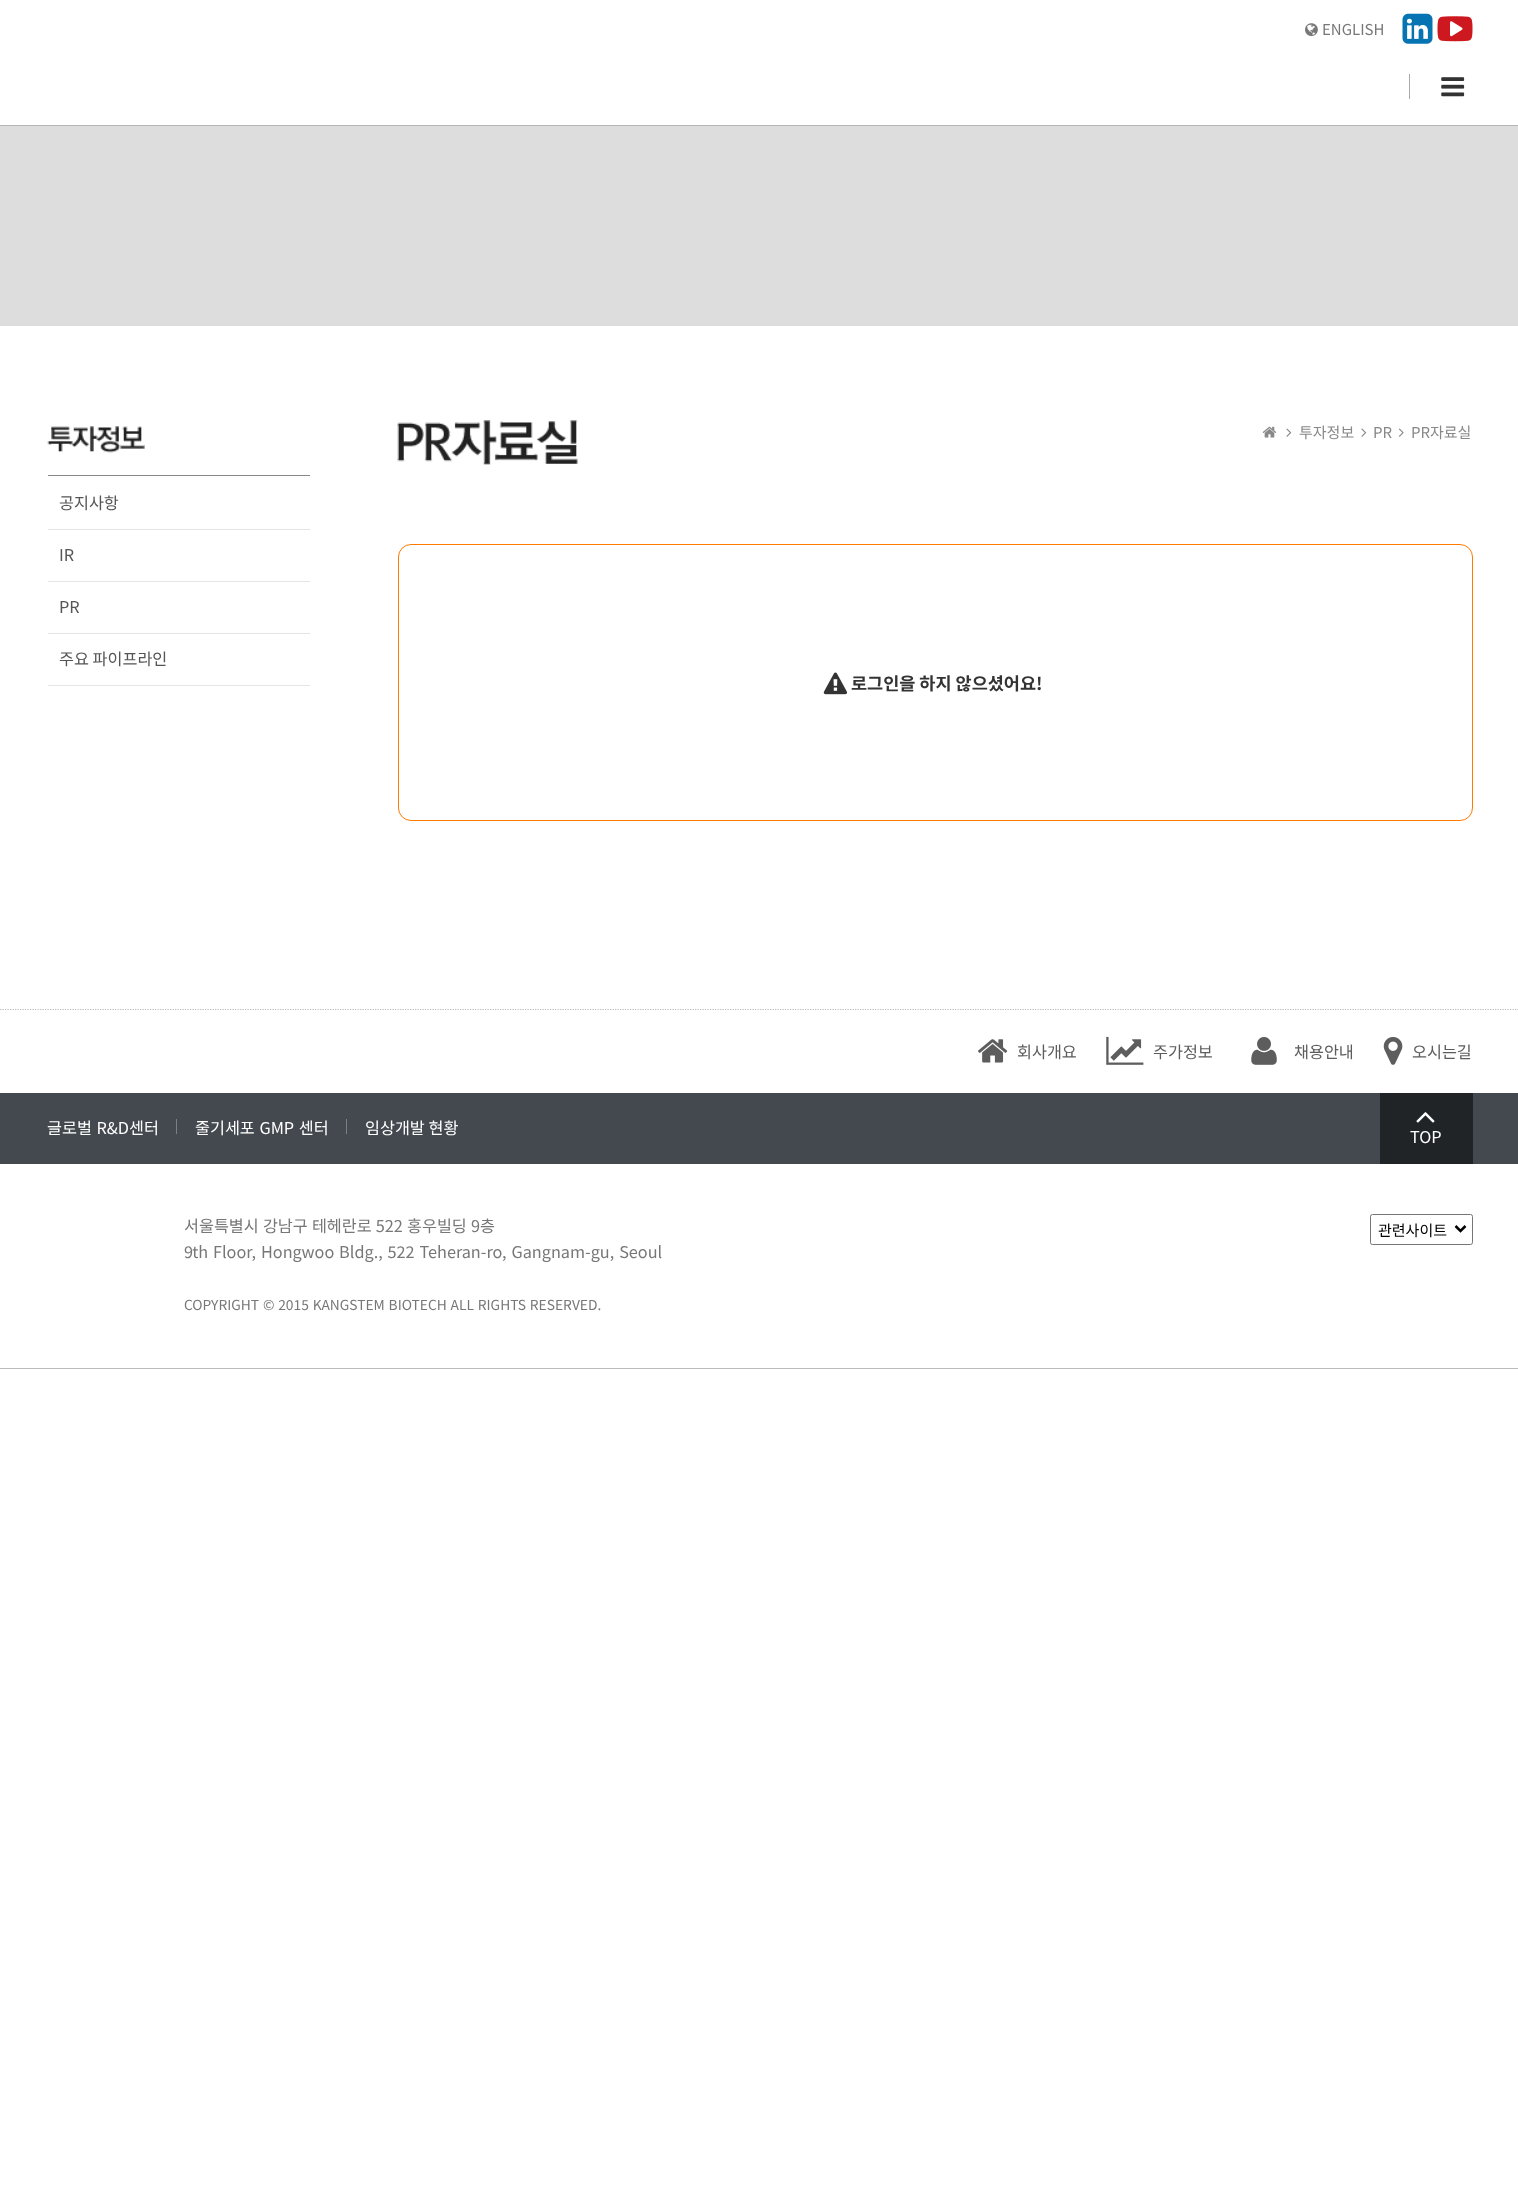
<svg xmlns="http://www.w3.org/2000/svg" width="1518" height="2185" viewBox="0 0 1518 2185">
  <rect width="100%" height="100%" fill="#fff"/>
  <path d="M0 125h1518v1H0z" fill="#b5b5b5"/>
  <image x="1305" y="23" width="13" height="14" href="img/1.png"/>
  <image x="1402" y="13" width="31" height="31" href="img/2.png"/>
  <image x="1437" y="16" width="36" height="26" href="img/3.png"/>
  <path d="M1409 74h1v25H1409z" fill="#aaa"/>
  <image x="1441" y="77" width="24" height="20" href="img/4.png"/>
  <path d="M0 126h1518v200H0z" fill="#ddd"/>
  <path d="M48 475h262v1H48z" fill="#888"/>
  <image x="47" y="426" width="98" height="27" href="img/5.png"/>
  <path d="M48 529h262v1H48z" fill="#e5e5e5"/>
  <path d="M48 581h262v1H48z" fill="#e5e5e5"/>
  <path d="M48 633h262v1H48z" fill="#e5e5e5"/>
  <path d="M48 685h262v1H48z" fill="#e5e5e5"/>
  <image x="397" y="420" width="181" height="45" href="img/6.png"/>
  <image x="1262" y="426" width="15" height="12" href="img/7.png"/>
  <image x="1286" y="428" width="6" height="9" href="img/8.png"/>
  <image x="1361" y="428" width="6" height="9" href="img/8.png"/>
  <image x="1398" y="428" width="6" height="9" href="img/9.png"/>
  <rect x="398.5" y="544.5" width="1074" height="276" rx="12.5" fill="none" stroke="#ff7900"/>
  <image x="823" y="672" width="25" height="23" href="img/10.png"/>
  <path d="M0 1009.5H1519" fill="none" stroke="#bbb" stroke-width="1.2" stroke-dasharray="1.25 1.25"/>
  <image x="978" y="1039" width="30" height="24" href="img/11.png"/>
  <image x="1106" y="1036" width="38" height="29" href="img/12.png"/>
  <image x="1251" y="1037" width="26" height="28" href="img/13.png"/>
  <image x="1383" y="1037" width="20" height="28" href="img/14.png"/>
  <path d="M0 1093h1518v71H0z" fill="#44494f"/>
  <path d="M176 1119h1v15H176z" fill="#7c8084"/>
  <path d="M346 1119h1v15H346z" fill="#7c8084"/>
  <path d="M1380 1093h93v71H1380z" fill="#202427"/>
  <image x="1416" y="1112" width="19" height="11" href="img/15.png"/>
  <path d="M0 1368h1518v1H0z" fill="#bbb"/>
  <rect x="1370.5" y="1214.5" width="102" height="30" rx="2" fill="none" stroke="#767676"/>
  <path d="M1455.5 1226L1460.5 1231L1465.5 1226" fill="none" stroke="#000" stroke-width="2.5"/>
  <text x="1322" y="35" font-family="Noto Sans KR" font-size="15" fill="#777">ENGLISH</text>
  <g font-family="Noto Sans KR" font-size="16.25" fill="#555">
    <text x="59" y="509">공지사항</text>
    <text x="59" y="561">IR</text>
    <text x="59" y="613">PR</text>
    <text x="59" y="665">주요 파이프라인</text>
  </g>
  <g font-family="Noto Sans KR" font-size="15" fill="#888">
    <text x="1299" y="438">투자정보</text>
    <text x="1373" y="438">PR</text>
    <text x="1411" y="438">PR자료실</text>
  </g>
  <text x="851" y="690" font-family="Noto Sans KR" font-size="17.5" font-weight="bold" fill="#333">로그인을 하지 않으셨어요!</text>
  <g font-family="Noto Sans KR" font-size="16.25" fill="#5d5d5d">
    <text x="1017" y="1058">회사개요</text>
    <text x="1153" y="1058">주가정보</text>
    <text x="1294" y="1058">채용안내</text>
    <text x="1412" y="1058">오시는길</text>
  </g>
  <g font-family="Noto Sans KR" font-size="16.25" fill="#fff">
    <text x="47" y="1134" word-spacing="1">글로벌 R&amp;D센터</text>
    <text x="195" y="1134" word-spacing="1">줄기세포 GMP 센터</text>
    <text x="365" y="1134">임상개발 현황</text>
    <text x="1410" y="1143">TOP</text>
  </g>
  <g font-family="Noto Sans KR" font-size="16.25" fill="#777">
    <text x="184" y="1232" word-spacing="0.5">서울특별시 강남구 테헤란로 522 홍우빌딩 9층</text>
    <text x="184" y="1258" word-spacing="1.25">9th Floor, Hongwoo Bldg., 522 Teheran-ro, Gangnam-gu, Seoul</text>
  </g>
  <text x="184" y="1310" word-spacing="0.75" font-family="Noto Sans KR" font-size="13.8" fill="#777">COPYRIGHT © 2015 KANGSTEM BIOTECH ALL RIGHTS RESERVED.</text>
  <text x="1378" y="1236" font-family="Noto Sans KR" font-size="15" fill="#000">관련사이트</text>
</svg>
